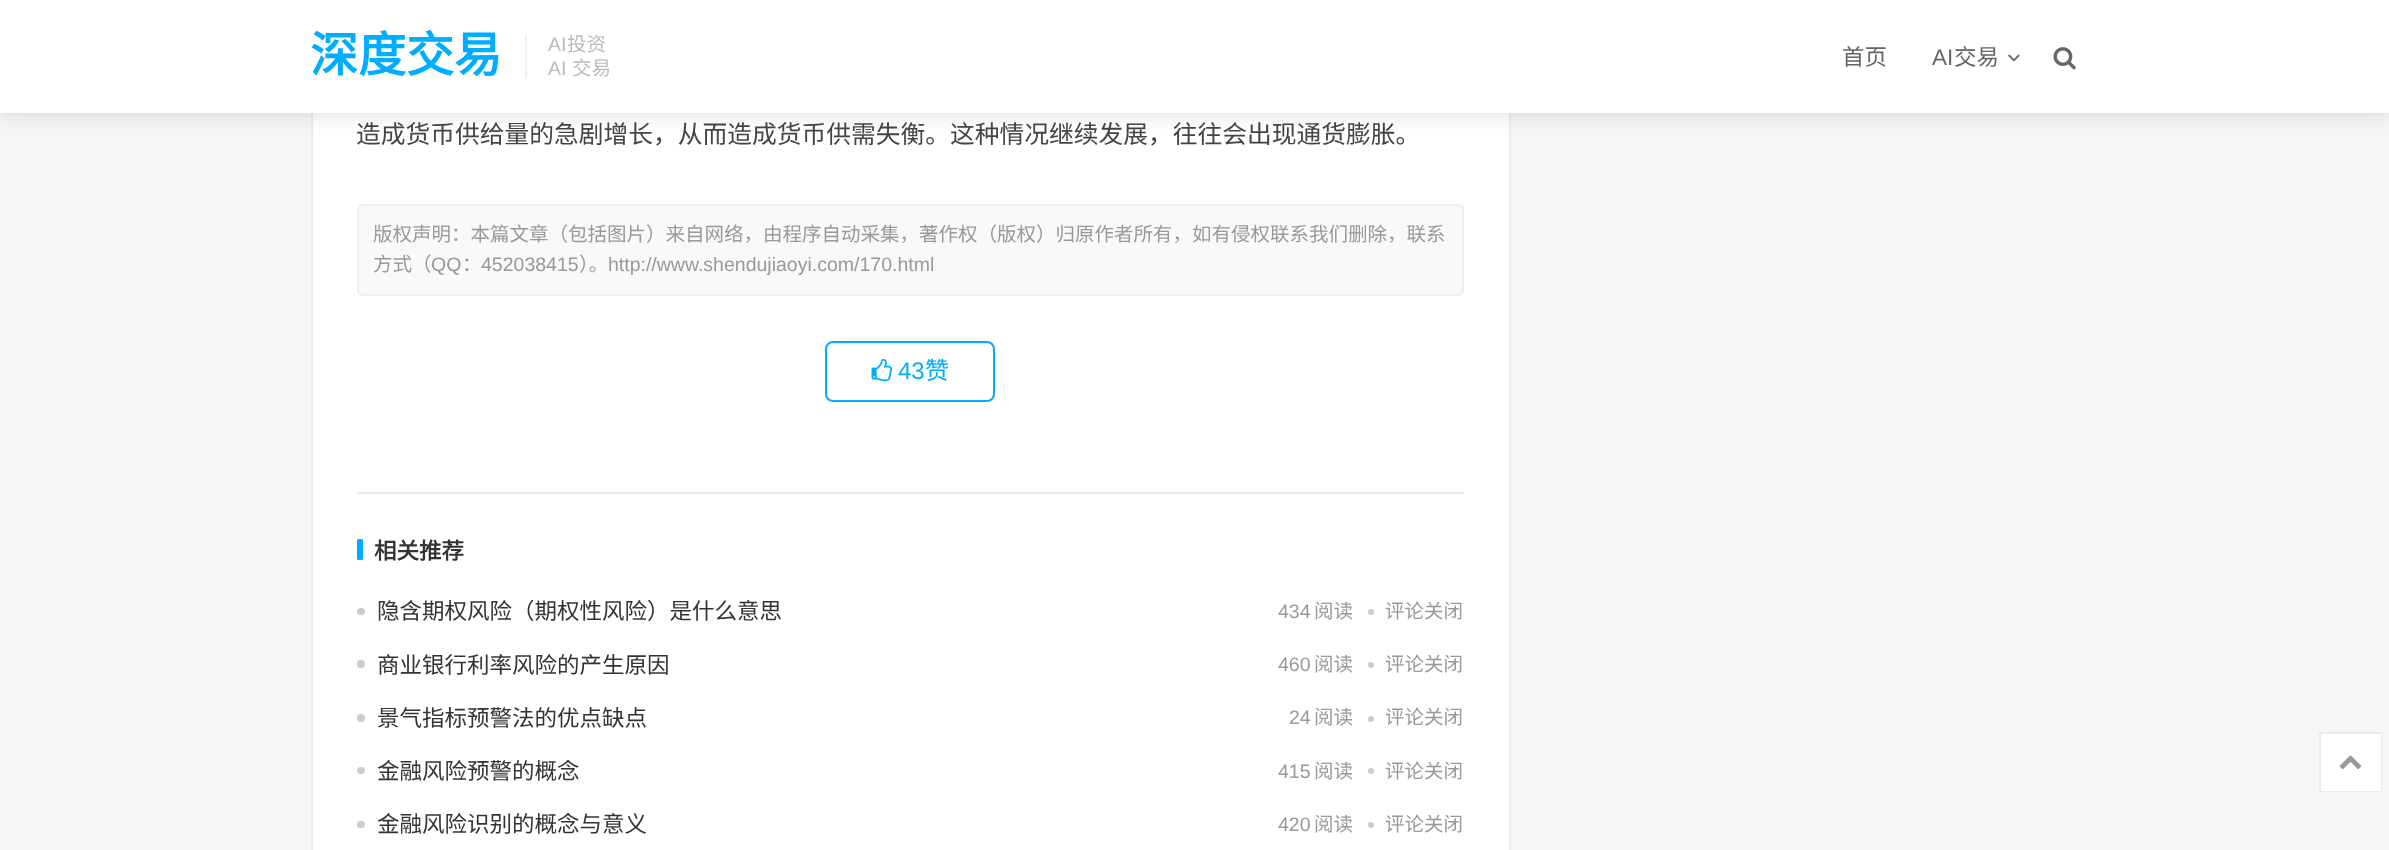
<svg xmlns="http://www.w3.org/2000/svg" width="2389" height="850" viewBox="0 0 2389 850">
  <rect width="100%" height="100%" fill="#f6f6f6"/>
  <path d="M313 113h1196v737H313z" fill="#fff"/>
  <path d="M312 -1h1198v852H312z" fill="none" stroke="#eaeaea" stroke-width="2"/>
  <path d="M0 5h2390v112H0z" fill="#0000001a" filter="blur(9px)"/>
  <path d="M0 0h2389v113H0z" fill="#fff"/>
  <path d="M525 35h2v43H525z" fill="#f0f0f0"/>
  <image x="2008" y="54" width="12" height="8" href="img/1.png"/>
  <image x="2053" y="47" width="23" height="23" href="img/2.png"/>
  <rect x="358" y="205" width="1105" height="90" rx="4" fill="#f9f9f9" stroke="#efefef" stroke-width="2"/>
  <rect x="826" y="342" width="168" height="59" rx="7" fill="none" stroke="#00aeff" stroke-width="2"/>
  <image x="871" y="358" width="22" height="24" href="img/3.png"/>
  <path d="M357 492h1107v2H357z" fill="#eaeaea"/>
  <rect x="357" y="539" width="6" height="21" rx="1.5" fill="#00aeff"/>
  <rect x="357" y="608" width="8" height="7" rx="3.5" fill="#ccc"/>
  <circle cx="1371" cy="612" r="3" fill="#ccc"/>
  <circle cx="361" cy="664" r="4" fill="#ccc"/>
  <circle cx="1371" cy="665" r="3" fill="#ccc"/>
  <circle cx="361" cy="718" r="4" fill="#ccc"/>
  <circle cx="1371" cy="719" r="3" fill="#ccc"/>
  <rect x="357" y="767" width="8" height="7" rx="3.5" fill="#ccc"/>
  <circle cx="1371" cy="771" r="3" fill="#ccc"/>
  <rect x="357" y="821" width="8" height="7" rx="3.5" fill="#ccc"/>
  <circle cx="1371" cy="825" r="3" fill="#ccc"/>
  <path d="M2320 733h61v58H2320z" fill="none" stroke="#eaeaea" stroke-width="2"/>
  <path d="M2321 734h60v57H2321z" fill="#fff"/>
  <image x="2339" y="755" width="23" height="15" href="img/4.png"/>
  <text x="310" y="72" font-family="Noto Sans CJK SC" font-size="48" font-weight="bold" fill="#00aeff">深度交易</text>
  <text x="548" y="51" font-family="Liberation Sans" font-size="19.5" fill="#bbb">AI</text>
  <text x="567" y="51" font-family="Noto Sans CJK SC" font-size="19.5" fill="#bbb">投资</text>
  <text x="548" y="75" font-family="Liberation Sans" font-size="19.5" fill="#bbb">AI</text>
  <text x="572" y="75" font-family="Noto Sans CJK SC" font-size="19.5" fill="#bbb">交易</text>
  <text x="1842" y="65" font-family="Noto Sans CJK SC" font-size="22.5" fill="#666">首页</text>
  <text x="1932" y="65" font-family="Liberation Sans" font-size="22.5" fill="#666">AI</text>
  <text x="1954" y="65" font-family="Noto Sans CJK SC" font-size="22.5" fill="#666">交易</text>
  <text x="356" y="143" font-family="Noto Sans CJK SC" font-size="24.75" fill="#444">造成货币供给量的急剧增长，从而造成货币供需失衡。这种情况继续发展，往往会出现通货膨胀。</text>
  <g font-family="Noto Sans CJK SC" font-size="19.5" fill="#999">
    <text x="373" y="241">版权声明：本篇文章（包括图片）来自网络，由程序自动采集，著作权（版权）归原作者所有，如有侵权联系我们删除，联系</text>
    <text x="373" y="271">方式（</text>
  </g>
  <text x="431" y="271" font-family="Liberation Sans" font-size="19.5" fill="#999">QQ</text>
  <text x="462" y="271" font-family="Noto Sans CJK SC" font-size="19.5" fill="#999">：</text>
  <text x="481" y="271" font-family="Liberation Sans" font-size="19.5" fill="#999">452038415</text>
  <text x="579" y="271" font-family="Noto Sans CJK SC" font-size="19.5" fill="#999">）。</text>
  <text x="608" y="271" font-family="Liberation Sans" font-size="19.5" fill="#999">http://www.shendujiaoyi.com/170.html</text>
  <text x="898" y="379" font-family="Liberation Sans" font-size="24" fill="#00aeff">43</text>
  <text x="925" y="379" font-family="Noto Sans CJK SC" font-size="24" fill="#00aeff">赞</text>
  <text x="374" y="559" font-family="Noto Sans CJK SC" font-size="22.5" font-weight="bold" fill="#333">相关推荐</text>
  <text x="377" y="619" font-family="Noto Sans CJK SC" font-size="22.5" fill="#333">隐含期权风险（期权性风险）是什么意思</text>
  <text x="1278" y="618" font-family="Liberation Sans" font-size="19.5" fill="#999">434</text>
  <g font-family="Noto Sans CJK SC" font-size="19.5" fill="#999">
    <text x="1314" y="618">阅读</text>
    <text x="1385" y="618">评论关闭</text>
  </g>
  <text x="377" y="673" font-family="Noto Sans CJK SC" font-size="22.5" fill="#333">商业银行利率风险的产生原因</text>
  <text x="1278" y="671" font-family="Liberation Sans" font-size="19.5" fill="#999">460</text>
  <g font-family="Noto Sans CJK SC" font-size="19.5" fill="#999">
    <text x="1314" y="671">阅读</text>
    <text x="1385" y="671">评论关闭</text>
  </g>
  <text x="377" y="726" font-family="Noto Sans CJK SC" font-size="22.5" fill="#333">景气指标预警法的优点缺点</text>
  <text x="1289" y="724" font-family="Liberation Sans" font-size="19.5" fill="#999">24</text>
  <g font-family="Noto Sans CJK SC" font-size="19.5" fill="#999">
    <text x="1314" y="724">阅读</text>
    <text x="1385" y="724">评论关闭</text>
  </g>
  <text x="377" y="779" font-family="Noto Sans CJK SC" font-size="22.5" fill="#333">金融风险预警的概念</text>
  <text x="1278" y="778" font-family="Liberation Sans" font-size="19.5" fill="#999">415</text>
  <g font-family="Noto Sans CJK SC" font-size="19.5" fill="#999">
    <text x="1314" y="778">阅读</text>
    <text x="1385" y="778">评论关闭</text>
  </g>
  <text x="377" y="832" font-family="Noto Sans CJK SC" font-size="22.5" fill="#333">金融风险识别的概念与意义</text>
  <text x="1278" y="831" font-family="Liberation Sans" font-size="19.5" fill="#999">420</text>
  <g font-family="Noto Sans CJK SC" font-size="19.5" fill="#999">
    <text x="1314" y="831">阅读</text>
    <text x="1385" y="831">评论关闭</text>
  </g>
</svg>
